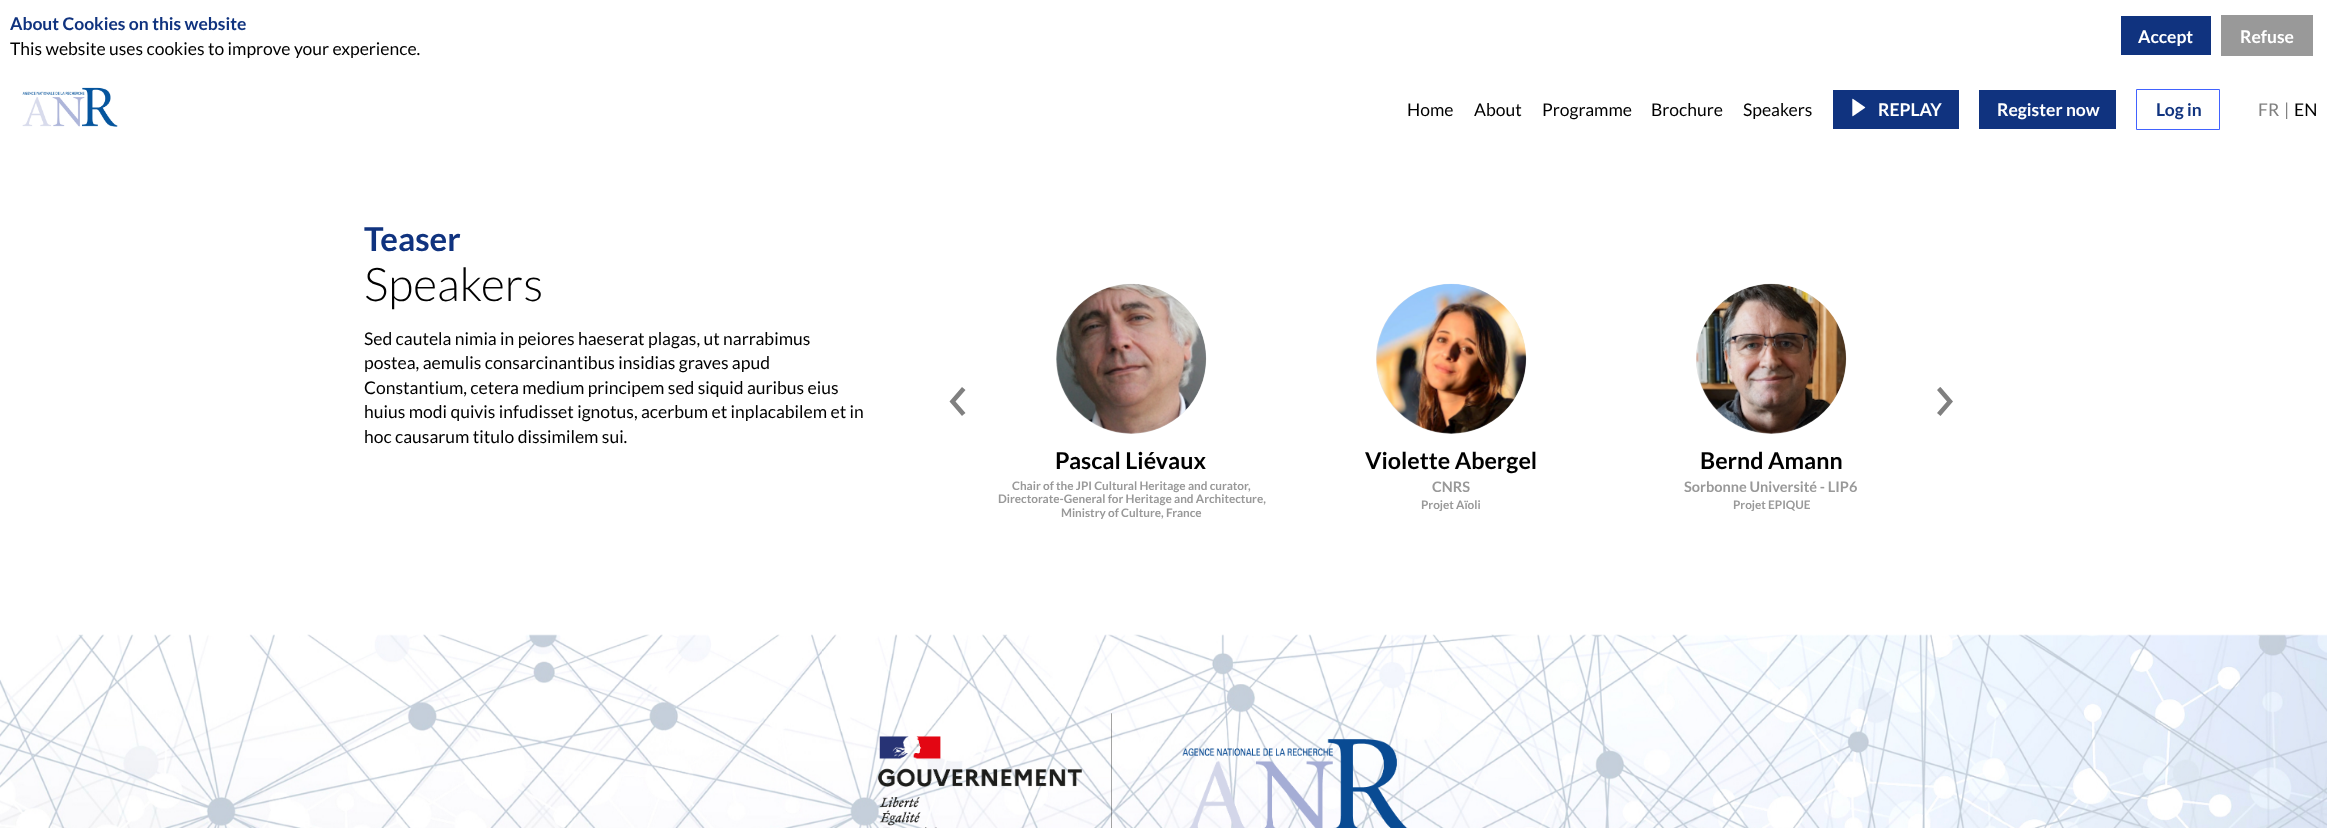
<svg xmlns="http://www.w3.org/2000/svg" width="2327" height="828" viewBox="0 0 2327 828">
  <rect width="100%" height="100%" fill="#fff"/>
  <path d="M2121 16h90v39H2121z" fill="#10337f"/>
  <path d="M2221 15h92v41H2221z" fill="#999"/>
  <image x="22" y="87" width="96" height="40" href="img/1.png"/>
  <path d="M1833 90h126v39H1833z" fill="#10337f"/>
  <image x="1852" y="98" width="14" height="19" href="img/2.png"/>
  <path d="M1979 90h137v39H1979z" fill="#10337f"/>
  <path d="M2136.5 89.5h83v40H2136.5z" fill="none" stroke="#4162ff"/>
  <path d="M963 415L965.5 413L955.5 401.5L965.5 390L962 387L949.5 401.5L962 416Z" fill="#808080"/>
  <path d="M1939.5 387.5L1937 390L1947 401.5L1937 413L1940.5 416L1953 401.5L1940.5 387Z" fill="#808080"/>
  <circle cx="1131" cy="359" r="75" fill="#e9e9e9"/>
  <image x="1056" y="283" width="151" height="151" href="img/3.png"/>
  <circle cx="1451" cy="359" r="75" fill="#e9e9e9"/>
  <image x="1376" y="283" width="151" height="151" href="img/4.png"/>
  <circle cx="1771" cy="359" r="75" fill="#e9e9e9"/>
  <image x="1696" y="283" width="151" height="151" href="img/5.png"/>
  <image x="0" y="634" width="2327" height="194" href="img/6.png"/>
  <image x="878" y="713" width="530" height="115" href="img/7.png"/>
  <text x="10" y="30" font-family="Lato" font-size="17.5" font-weight="bold" fill="#10337f">About Cookies on this website</text>
  <text x="10" y="55" font-family="Lato" font-size="17.5" fill="#000">This website uses cookies to improve your experience.</text>
  <g font-family="Lato" font-size="17.5" font-weight="bold" fill="#fff">
    <text x="2138" y="43">Accept</text>
    <text x="2240" y="43">Refuse</text>
  </g>
  <g font-family="Lato" font-size="17.5" fill="#000">
    <text x="1407" y="116">Home</text>
    <text x="1474" y="116">About</text>
    <text x="1542" y="116">Programme</text>
    <text x="1651" y="116">Brochure</text>
    <text x="1743" y="116">Speakers</text>
  </g>
  <g font-family="Lato" font-size="17.5" font-weight="bold" fill="#fff">
    <text x="1878" y="116">REPLAY</text>
    <text x="1997" y="116">Register now</text>
  </g>
  <text x="2156" y="116" font-family="Lato" font-size="17.5" font-weight="bold" fill="#10337f">Log in</text>
  <g font-family="Lato" font-size="17.5" fill="#808080">
    <text x="2258" y="116">FR</text>
    <text x="2284" y="116">|</text>
  </g>
  <text x="2294" y="116" font-family="Lato" font-size="17.5" fill="#000">EN</text>
  <text x="364" y="251" font-family="Lato" font-size="33" font-weight="bold" fill="#10337f">Teaser</text>
  <text x="364" y="301" font-family="Lato" font-size="46.5" font-weight="300" fill="#000">Speakers</text>
  <g font-family="Lato" font-size="17.5" fill="#000">
    <text x="364" y="345">Sed cautela nimia in peiores haeserat plagas, ut narrabimus</text>
    <text x="364" y="369">postea, aemulis consarcinantibus insidias graves apud</text>
    <text x="364" y="394">Constantium, cetera medium principem sed siquid auribus eius</text>
    <text x="364" y="418">huius modi quivis infudisset ignotus, acerbum et inplacabilem et in</text>
    <text x="364" y="443">hoc causarum titulo dissimilem sui.</text>
  </g>
  <text x="1055" y="469" font-family="Lato" font-size="23.25" font-weight="bold" fill="#000">Pascal Liévaux</text>
  <g font-family="Lato" font-size="11.75" font-weight="bold" fill="#999">
    <text x="1012" y="490">Chair of the JPI Cultural Heritage and curator,</text>
    <text x="998" y="503">Directorate-General for Heritage and Architecture,</text>
    <text x="1061" y="517">Ministry of Culture, France</text>
  </g>
  <text x="1365" y="469" font-family="Lato" font-size="23.25" font-weight="bold" fill="#000">Violette Abergel</text>
  <text x="1432" y="492" font-family="Lato" font-size="14.5" font-weight="bold" fill="#999">CNRS</text>
  <text x="1421" y="509" font-family="Lato" font-size="11.75" font-weight="bold" fill="#999">Projet Aïoli</text>
  <text x="1700" y="469" font-family="Lato" font-size="23.25" font-weight="bold" fill="#000">Bernd Amann</text>
  <text x="1684" y="492" font-family="Lato" font-size="14.5" font-weight="bold" fill="#999">Sorbonne Université - LIP6</text>
  <text x="1733" y="509" font-family="Lato" font-size="11.75" font-weight="bold" fill="#999">Projet EPIQUE</text>
</svg>
